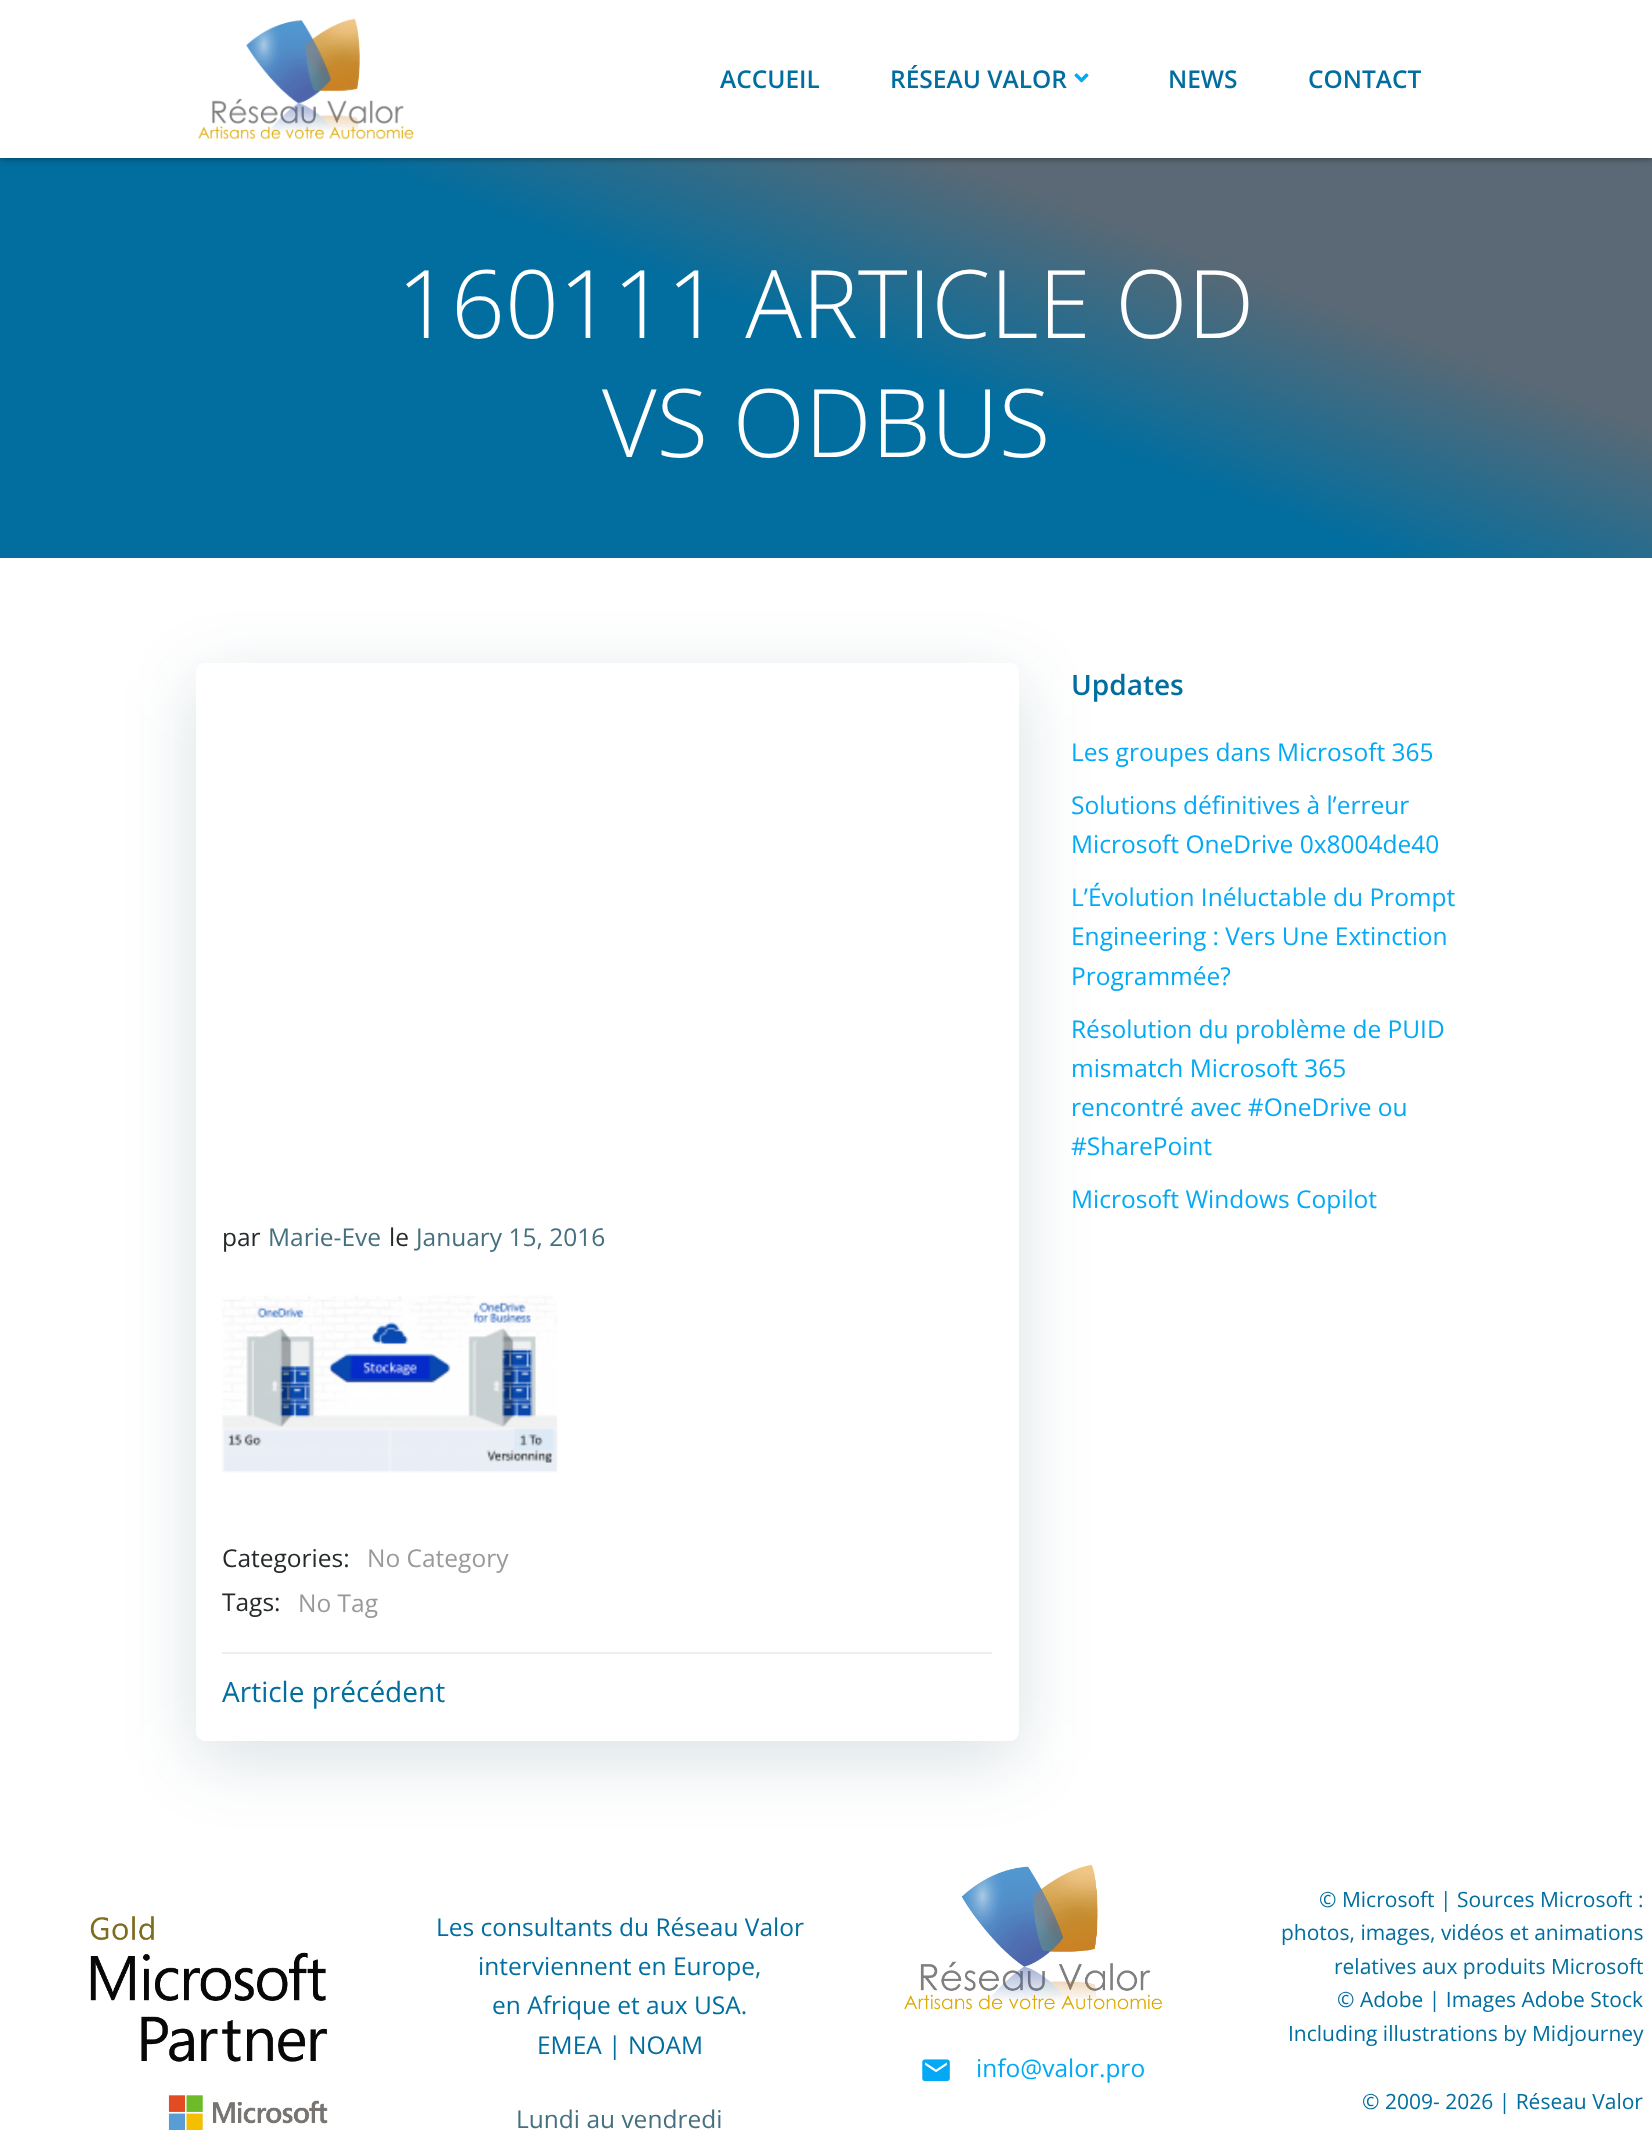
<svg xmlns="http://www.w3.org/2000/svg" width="1652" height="2130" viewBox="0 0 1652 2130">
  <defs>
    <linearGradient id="g1" gradientUnits="userSpaceOnUse" x1="613" y1="794" x2="1039" y2="-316"><stop offset="0.42" stop-color="#026e9f"/><stop offset="0.6" stop-color="#5a6975"/></linearGradient>
  </defs>
  <rect width="100%" height="100%" fill="#fff"/>
  <path d="M0 158h1652v400H0z" fill="url(#g1)"/>
  <path d="M0 0h1652v158H0z" fill="#00000080" filter="blur(3.5px)"/>
  <path d="M0 0h1652v158H0z" fill="#fff"/>
  <image x="198" y="18" width="216" height="122" href="img/1.png"/>
  <image x="1074" y="73" width="15" height="10" href="img/2.png"/>
  <rect x="196" y="681" width="823" height="1078" rx="9" fill="#01334a26" filter="blur(35px)"/>
  <rect x="196" y="663" width="823" height="1078" rx="9" fill="#fff"/>
  <image x="222" y="1295" width="336" height="178" href="img/3.png"/>
  <path d="M222 1652h770v2H222z" fill="#eee"/>
  <image x="90" y="1916" width="238" height="214" href="img/4.png"/>
  <image x="904" y="1865" width="258" height="145" href="img/5.png"/>
  <image x="922" y="2059" width="28" height="23" href="img/6.png"/>
  <g font-family="Open Sans" font-size="24.5" font-weight="600" fill="#026e9f">
    <text x="720" y="88">ACCUEIL</text>
    <text x="890" y="88">RÉSEAU VALOR</text>
    <text x="1168" y="88">NEWS</text>
    <text x="1308" y="88">CONTACT</text>
  </g>
  <g font-family="Open Sans" font-size="94.5" font-weight="300" fill="#fff">
    <text x="397" y="338">160111 ARTICLE OD</text>
    <text x="602" y="457">VS ODBUS</text>
  </g>
  <text x="1071" y="695" font-family="Open Sans" font-size="28" font-weight="600" fill="#026e9f">Updates</text>
  <g font-family="Open Sans" font-size="24.5" fill="#03a9f4">
    <text x="1071" y="761">Les groupes dans Microsoft 365</text>
    <text x="1071" y="814">Solutions définitives à l’erreur</text>
    <text x="1071" y="853">Microsoft OneDrive 0x8004de40</text>
    <text x="1071" y="906">L’Évolution Inéluctable du Prompt</text>
    <text x="1071" y="945">Engineering : Vers Une Extinction</text>
    <text x="1071" y="985">Programmée?</text>
    <text x="1071" y="1038">Résolution du problème de PUID</text>
    <text x="1071" y="1077">mismatch Microsoft 365</text>
    <text x="1071" y="1116">rencontré avec #OneDrive ou</text>
    <text x="1071" y="1155">#SharePoint</text>
    <text x="1071" y="1208">Microsoft Windows Copilot</text>
  </g>
  <text x="222" y="1246" font-family="Open Sans" font-size="24.5" fill="#25292a">par</text>
  <text x="268" y="1246" font-family="Open Sans" font-size="24.5" fill="#46707f">Marie-Eve</text>
  <text x="389" y="1246" font-family="Open Sans" font-size="24.5" fill="#25292a">le</text>
  <text x="416" y="1246" font-family="Open Sans" font-size="24.5" fill="#46707f">January 15, 2016</text>
  <text x="222" y="1567" font-family="Open Sans" font-size="24.5" fill="#25292a">Categories:</text>
  <text x="367" y="1567" font-family="Open Sans" font-size="24.5" fill="#999">No Category</text>
  <text x="222" y="1611" font-family="Open Sans" font-size="24.5" fill="#25292a">Tags:</text>
  <text x="298" y="1612" font-family="Open Sans" font-size="24.5" fill="#999">No Tag</text>
  <text x="222" y="1702" font-family="Open Sans" font-size="28" fill="#026e9f">Article précédent</text>
  <g font-family="Open Sans" font-size="24.5" fill="#026e9f">
    <text x="436" y="1936">Les consultants du Réseau Valor</text>
    <text x="478" y="1975">interviennent en Europe,</text>
    <text x="492" y="2014">en Afrique et aux USA.</text>
    <text x="537" y="2054">EMEA | NOAM</text>
  </g>
  <text x="516" y="2128" font-family="Open Sans" font-size="24.5" fill="#46707f">Lundi au vendredi</text>
  <text x="976" y="2077" font-family="Open Sans" font-size="24.5" fill="#03a9f4">info@valor.pro</text>
  <g font-family="Open Sans" font-size="21" fill="#026e9f">
    <text x="1319" y="1907">© Microsoft | Sources Microsoft :</text>
    <text x="1281" y="1940">photos, images, vidéos et animations</text>
    <text x="1334" y="1974">relatives aux produits Microsoft</text>
    <text x="1337" y="2007">© Adobe | Images Adobe Stock</text>
    <text x="1288" y="2041">Including illustrations by Midjourney</text>
    <text x="1362" y="2109">© 2009- 2026 | Réseau Valor</text>
  </g>
</svg>
